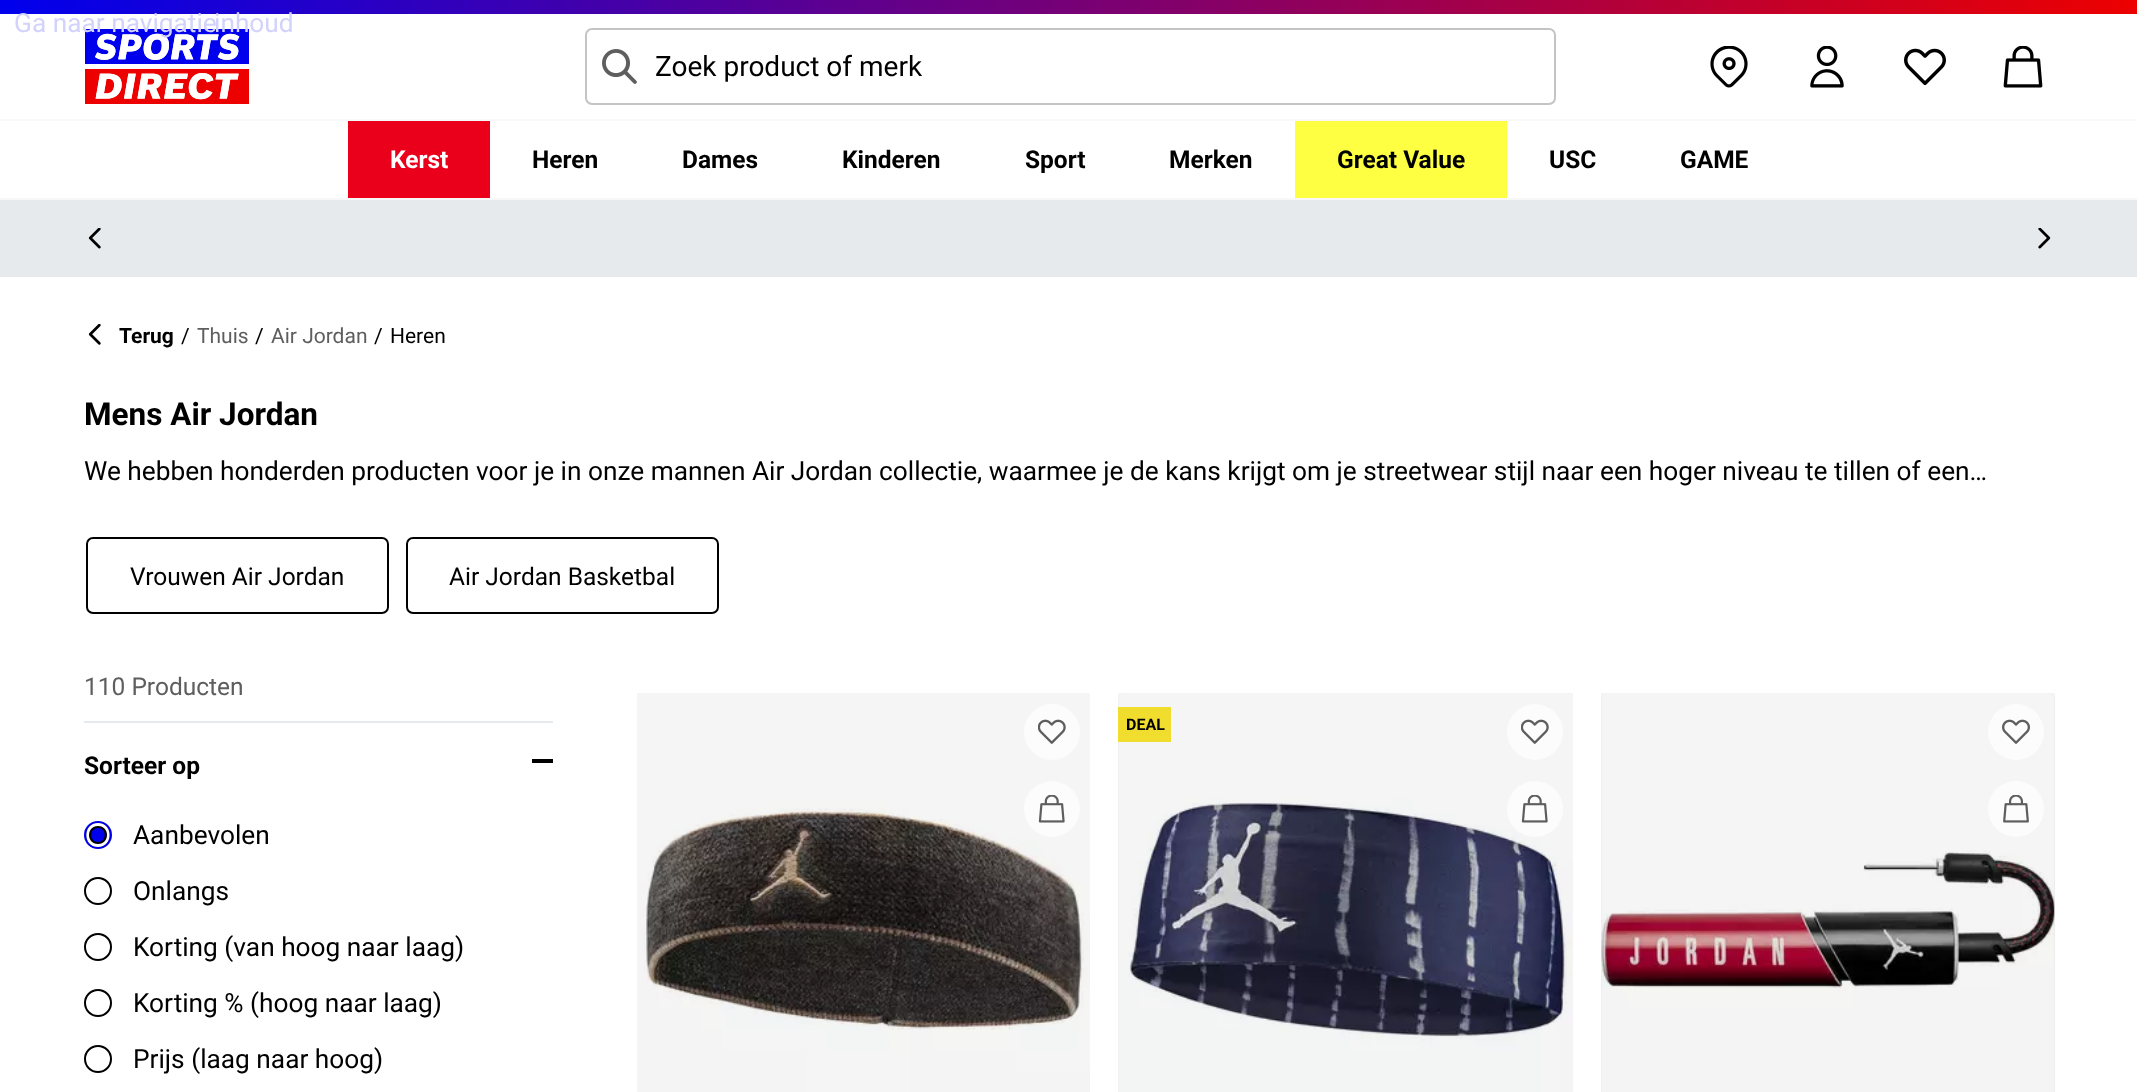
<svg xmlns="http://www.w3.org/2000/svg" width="2137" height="1092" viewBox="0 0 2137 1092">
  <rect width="100%" height="100%" fill="#fff"/>
  <image x="0" y="0" width="2137" height="14" href="img/1.png"/>
  <image x="85" y="29" width="164" height="75" href="img/2.png"/>
  <rect x="586" y="29" width="969" height="75" rx="6" fill="none" stroke="#c4c4c4" stroke-width="2"/>
  <image x="602" y="49" width="35" height="35" href="img/3.png"/>
  <image x="1710" y="46" width="38" height="42" href="img/4.png"/>
  <image x="1810" y="46" width="34" height="42" href="img/5.png"/>
  <image x="1904" y="48" width="42" height="38" href="img/6.png"/>
  <image x="2003" y="46" width="40" height="42" href="img/7.png"/>
  <path d="M0 119h2137v2H0z" fill="#f8f8f8"/>
  <path d="M0 198h2137v2H0z" fill="#f8f8f8"/>
  <path d="M348 121h142v77H348z" fill="#eb001b"/>
  <path d="M1295 121h212v77H1295z" fill="#feff43"/>
  <path d="M0 200h2137v77H0z" fill="#e7eaec"/>
  <image x="88" y="228" width="13" height="21" href="img/8.png"/>
  <image x="2038" y="228" width="13" height="21" href="img/9.png"/>
  <image x="88" y="324" width="13" height="21" href="img/10.png"/>
  <rect x="87" y="538" width="301" height="75" rx="6" fill="none" stroke="#000" stroke-width="2"/>
  <rect x="407" y="538" width="311" height="75" rx="6" fill="none" stroke="#000" stroke-width="2"/>
  <path d="M84 721h469v2H84z" fill="#e7eaec"/>
  <path d="M532 759h21v4H532z" fill="#000"/>
  <circle cx="98" cy="835" r="13" fill="#0000ed" stroke="#0000ed" stroke-width="2"/>
  <path d="M98 823C82.5 823 82.5 847 98 847C113.5 847 113.5 823 98 823ZM98 828C89 828 89 842 98 842C107 842 107 828 98 828Z" fill="#000" fill-rule="evenodd"/>
  <path d="M98 823C82.5 823 82.5 847 98 847C113.5 847 113.5 823 98 823ZM98 826C86 826 86 844 98 844C110 844 110 826 98 826Z" fill="#fff" fill-rule="evenodd"/>
  <circle cx="98" cy="891" r="13" fill="none" stroke="#000" stroke-width="2"/>
  <circle cx="98" cy="947" r="13" fill="none" stroke="#000" stroke-width="2"/>
  <circle cx="98" cy="1003" r="13" fill="none" stroke="#000" stroke-width="2"/>
  <circle cx="98" cy="1059" r="13" fill="none" stroke="#000" stroke-width="2"/>
  <image x="637" y="693" width="453" height="399" href="img/11.png"/>
  <path d="M637 693h453v399H637z" fill="#0000000a"/>
  <circle cx="1052" cy="732" r="28" fill="#fcfcfc"/>
  <image x="1038" y="719" width="28" height="25" href="img/12.png"/>
  <circle cx="1052" cy="809" r="28" fill="#fcfcfc"/>
  <image x="1038" y="795" width="27" height="28" href="img/13.png"/>
  <rect x="1118" y="693" width="455" height="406" rx="7" fill="#f5f5f5"/>
  <image x="1118" y="693" width="455" height="399" href="img/14.png"/>
  <path d="M1118 693h455v399H1118z" fill="#0000000a"/>
  <path d="M1118 707h53v35H1118z" fill="#f0dd2d"/>
  <circle cx="1535" cy="732" r="28" fill="#fcfcfc"/>
  <image x="1521" y="719" width="28" height="25" href="img/12.png"/>
  <circle cx="1535" cy="809" r="28" fill="#fcfcfc"/>
  <image x="1521" y="795" width="27" height="28" href="img/13.png"/>
  <rect x="1601" y="693" width="454" height="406" rx="7" fill="#f5f5f5"/>
  <image x="1601" y="693" width="454" height="399" href="img/15.png"/>
  <path d="M1601 693h454v399H1601z" fill="#0000000a"/>
  <circle cx="2016" cy="732" r="28" fill="#fcfcfc"/>
  <image x="2002" y="719" width="28" height="25" href="img/16.png"/>
  <circle cx="2016" cy="809" r="28" fill="#fcfcfc"/>
  <image x="2003" y="795" width="26" height="28" href="img/17.png"/>
  <g font-family="Roboto" font-size="26.25" fill="#d2d2fc">
    <text x="14" y="32">Ga naar navigatie</text>
    <text x="214" y="32">inhoud</text>
  </g>
  <text x="655" y="76" font-family="Roboto" font-size="28" fill="#000">Zoek product of merk</text>
  <text x="390" y="168" font-family="Roboto" font-size="24.5" font-weight="bold" fill="#fff">Kerst</text>
  <g font-family="Roboto" font-size="24.5" font-weight="bold" fill="#000">
    <text x="532" y="168">Heren</text>
    <text x="682" y="168">Dames</text>
    <text x="842" y="168">Kinderen</text>
    <text x="1025" y="168">Sport</text>
    <text x="1169" y="168">Merken</text>
    <text x="1337" y="168">Great Value</text>
    <text x="1549" y="168">USC</text>
    <text x="1680" y="168">GAME</text>
  </g>
  <text x="119" y="343" font-family="Roboto" font-size="21" font-weight="bold" fill="#000">Terug</text>
  <text x="181" y="343" font-family="Roboto" font-size="21" fill="#000">/</text>
  <text x="197" y="343" font-family="Roboto" font-size="21" fill="#5e5e5e">Thuis</text>
  <text x="255" y="343" font-family="Roboto" font-size="21" fill="#000">/</text>
  <text x="271" y="343" font-family="Roboto" font-size="21" fill="#5e5e5e">Air Jordan</text>
  <g font-family="Roboto" font-size="21" fill="#000">
    <text x="374" y="343">/</text>
    <text x="390" y="343">Heren</text>
  </g>
  <text x="84" y="425" font-family="Roboto" font-size="31.5" font-weight="bold" fill="#000">Mens Air Jordan</text>
  <text x="84" y="480" font-family="Roboto" font-size="26.25" fill="#000">We hebben honderden producten voor je in onze mannen Air Jordan collectie, waarmee je de kans krijgt om je streetwear stijl naar een hoger niveau te tillen of een…</text>
  <g font-family="Roboto" font-size="24.5" fill="#000">
    <text x="130" y="585">Vrouwen Air Jordan</text>
    <text x="449" y="585">Air Jordan Basketbal</text>
  </g>
  <text x="84" y="695" font-family="Roboto" font-size="24.5" fill="#5e5e5e">110 Producten</text>
  <text x="84" y="774" font-family="Roboto" font-size="24.5" font-weight="bold" fill="#000">Sorteer op</text>
  <g font-family="Roboto" font-size="26.25" fill="#000">
    <text x="133" y="844">Aanbevolen</text>
    <text x="133" y="900">Onlangs</text>
    <text x="133" y="956">Korting (van hoog naar laag)</text>
    <text x="133" y="1012">Korting % (hoog naar laag)</text>
    <text x="133" y="1068">Prijs (laag naar hoog)</text>
  </g>
  <text x="1126" y="730" font-family="Roboto" font-size="16" font-weight="bold" fill="#000">DEAL</text>
</svg>
